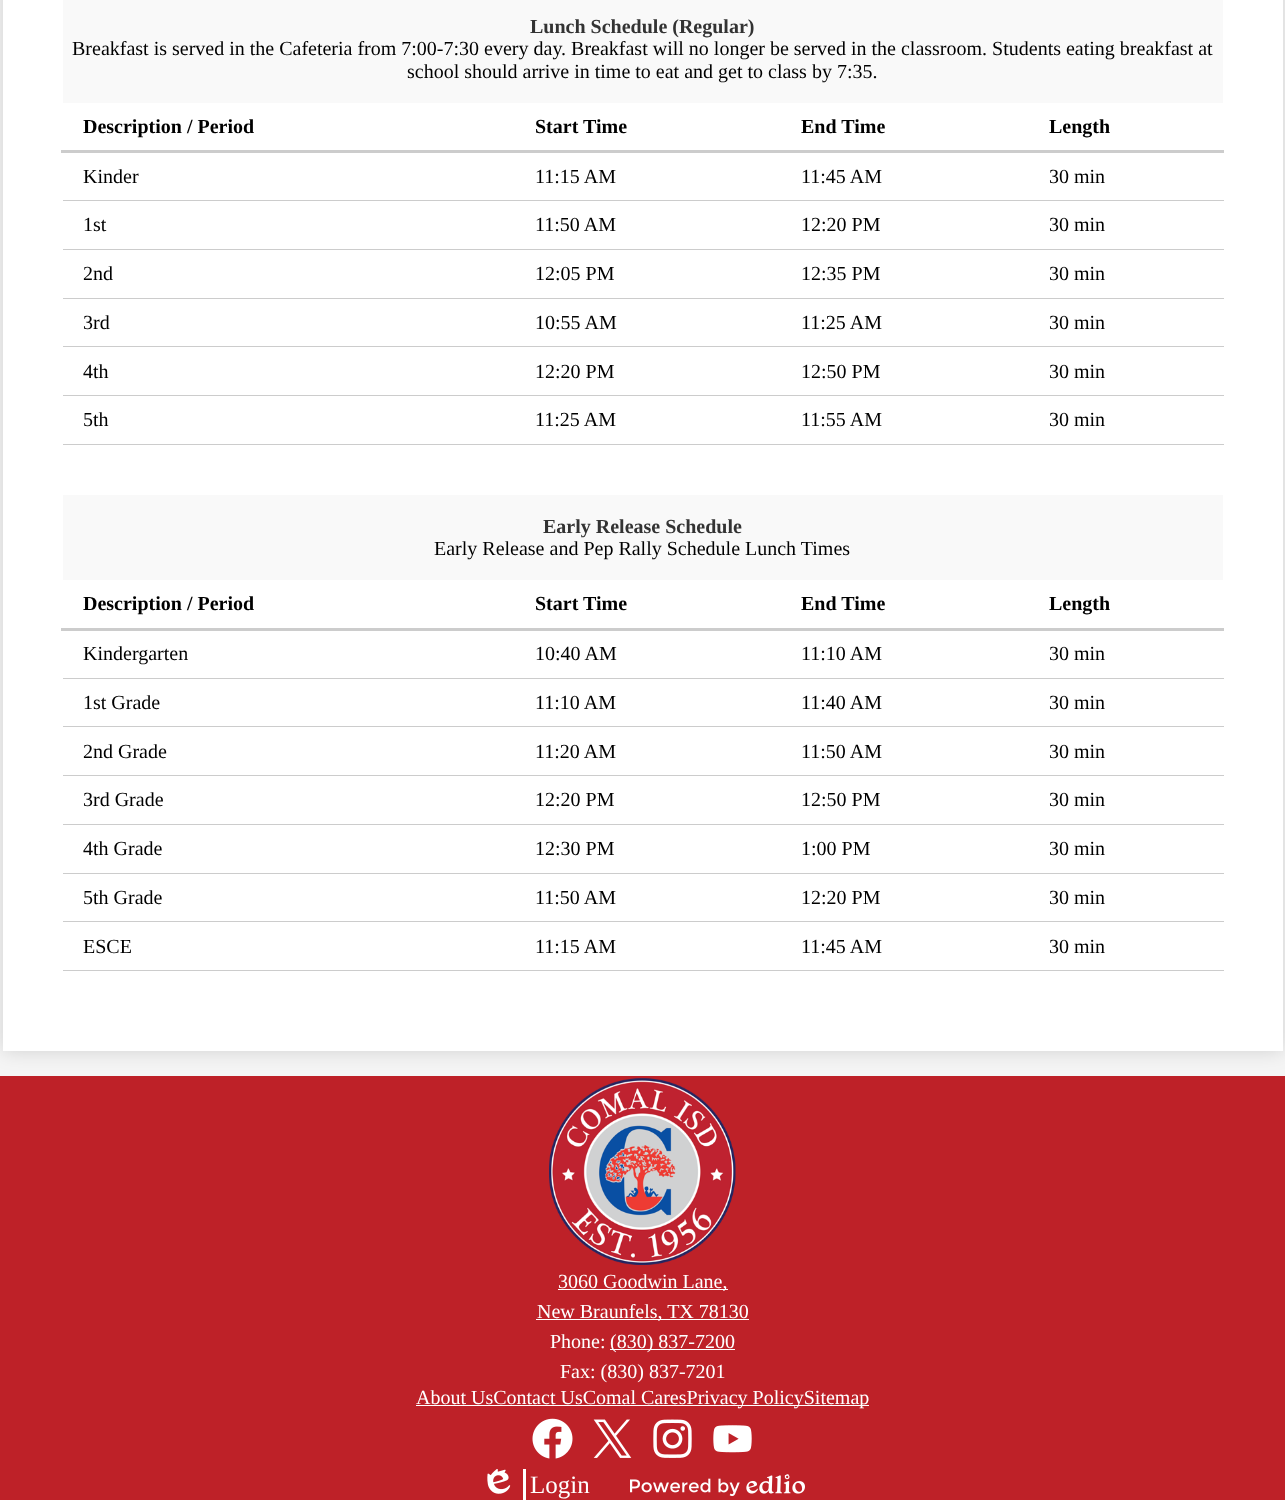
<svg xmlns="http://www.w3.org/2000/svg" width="1285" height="1500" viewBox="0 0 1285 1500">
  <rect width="100%" height="100%" fill="#f5f5f5"/>
  <path d="M0 1076h1285v424H0z" fill="#be2128"/>
  <image x="549" y="1078" width="187" height="187" href="img/1.png"/>
  <path d="M3 -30h1280v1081H3z" fill="#00000026" filter="blur(10px)"/>
  <path d="M3 0h1280v1051H3z" fill="#fff"/>
  <path d="M63 0h1160v103H63z" fill="#f9f9f9"/>
  <path d="M61 150h1163v3H61z" fill="#ccc"/>
  <path d="M63 200h1161v1H63z" fill="#ccc"/>
  <path d="M63 249h1161v1H63z" fill="#ccc"/>
  <path d="M63 298h1161v1H63z" fill="#ccc"/>
  <path d="M63 346h1161v1H63z" fill="#ccc"/>
  <path d="M63 395h1161v1H63z" fill="#ccc"/>
  <path d="M63 444h1161v1H63z" fill="#ccc"/>
  <path d="M63 495h1160v85H63z" fill="#f9f9f9"/>
  <path d="M61 628h1163v3H61z" fill="#ccc"/>
  <path d="M63 678h1161v1H63z" fill="#ccc"/>
  <path d="M63 726h1161v1H63z" fill="#ccc"/>
  <path d="M63 775h1161v1H63z" fill="#ccc"/>
  <path d="M63 824h1161v1H63z" fill="#ccc"/>
  <path d="M63 873h1161v1H63z" fill="#ccc"/>
  <path d="M63 921h1161v1H63z" fill="#ccc"/>
  <path d="M63 970h1161v1H63z" fill="#ccc"/>
  <path d="M558 1289h170v1H558z" fill="#fff"/>
  <path d="M536 1319h213v1H536z" fill="#fff"/>
  <path d="M610 1349h125v1H610z" fill="#fff"/>
  <path d="M416 1405h453v1H416z" fill="#fff"/>
  <image x="532" y="1418" width="41" height="41" href="img/2.png"/>
  <image x="593" y="1419" width="39" height="39" href="img/3.png"/>
  <image x="653" y="1419" width="39" height="39" href="img/4.png"/>
  <image x="713" y="1425" width="39" height="28" href="img/5.png"/>
  <path d="M523 1469h3v31H523z" fill="#fff"/>
  <image x="487" y="1469" width="24" height="25" href="img/6.png"/>
  <image x="630" y="1474" width="175" height="23" href="img/7.png"/>
  <text x="530" y="33" font-family="Liberation Serif" font-size="20" font-weight="bold" fill="#333">Lunch Schedule (Regular)</text>
  <g font-family="Liberation Serif" font-size="20" fill="#000">
    <text x="72" y="55">Breakfast is served in the Cafeteria from 7:00-7:30 every day. Breakfast will no longer be served in the classroom. Students eating breakfast at</text>
    <text x="407" y="78">school should arrive in time to eat and get to class by 7:35.</text>
  </g>
  <g font-family="Liberation Serif" font-size="20" font-weight="bold" fill="#000">
    <text x="83" y="133">Description / Period</text>
    <text x="535" y="133">Start Time</text>
    <text x="801" y="133">End Time</text>
    <text x="1049" y="133">Length</text>
  </g>
  <g font-family="Liberation Serif" font-size="20" fill="#000">
    <text x="83" y="183">Kinder</text>
    <text x="535" y="183">11:15 AM</text>
    <text x="801" y="183">11:45 AM</text>
    <text x="1049" y="183">30 min</text>
    <text x="83" y="231">1st</text>
    <text x="535" y="231">11:50 AM</text>
    <text x="801" y="231">12:20 PM</text>
    <text x="1049" y="231">30 min</text>
    <text x="83" y="280">2nd</text>
    <text x="535" y="280">12:05 PM</text>
    <text x="801" y="280">12:35 PM</text>
    <text x="1049" y="280">30 min</text>
    <text x="83" y="329">3rd</text>
    <text x="535" y="329">10:55 AM</text>
    <text x="801" y="329">11:25 AM</text>
    <text x="1049" y="329">30 min</text>
    <text x="83" y="378">4th</text>
    <text x="535" y="378">12:20 PM</text>
    <text x="801" y="378">12:50 PM</text>
    <text x="1049" y="378">30 min</text>
    <text x="83" y="426">5th</text>
    <text x="535" y="426">11:25 AM</text>
    <text x="801" y="426">11:55 AM</text>
    <text x="1049" y="426">30 min</text>
  </g>
  <text x="543" y="533" font-family="Liberation Serif" font-size="20" font-weight="bold" fill="#333">Early Release Schedule</text>
  <text x="434" y="555" font-family="Liberation Serif" font-size="20" fill="#000">Early Release and Pep Rally Schedule Lunch Times</text>
  <g font-family="Liberation Serif" font-size="20" font-weight="bold" fill="#000">
    <text x="83" y="610">Description / Period</text>
    <text x="535" y="610">Start Time</text>
    <text x="801" y="610">End Time</text>
    <text x="1049" y="610">Length</text>
  </g>
  <g font-family="Liberation Serif" font-size="20" fill="#000">
    <text x="83" y="660">Kindergarten</text>
    <text x="535" y="660">10:40 AM</text>
    <text x="801" y="660">11:10 AM</text>
    <text x="1049" y="660">30 min</text>
    <text x="83" y="709">1st Grade</text>
    <text x="535" y="709">11:10 AM</text>
    <text x="801" y="709">11:40 AM</text>
    <text x="1049" y="709">30 min</text>
    <text x="83" y="758">2nd Grade</text>
    <text x="535" y="758">11:20 AM</text>
    <text x="801" y="758">11:50 AM</text>
    <text x="1049" y="758">30 min</text>
    <text x="83" y="806">3rd Grade</text>
    <text x="535" y="806">12:20 PM</text>
    <text x="801" y="806">12:50 PM</text>
    <text x="1049" y="806">30 min</text>
    <text x="83" y="855">4th Grade</text>
    <text x="535" y="855">12:30 PM</text>
    <text x="801" y="855">1:00 PM</text>
    <text x="1049" y="855">30 min</text>
    <text x="83" y="904">5th Grade</text>
    <text x="535" y="904">11:50 AM</text>
    <text x="801" y="904">12:20 PM</text>
    <text x="1049" y="904">30 min</text>
    <text x="83" y="953">ESCE</text>
    <text x="535" y="953">11:15 AM</text>
    <text x="801" y="953">11:45 AM</text>
    <text x="1049" y="953">30 min</text>
  </g>
  <g font-family="Liberation Serif" font-size="20" fill="#fff">
    <text x="558" y="1288">3060 Goodwin Lane,</text>
    <text x="537" y="1318">New Braunfels, TX 78130</text>
    <text x="550" y="1348">Phone:</text>
    <text x="610" y="1348">(830) 837-7200</text>
    <text x="560" y="1378">Fax: (830) 837-7201</text>
    <text x="416" y="1404">About UsContact UsComal CaresPrivacy PolicySitemap</text>
  </g>
  <text x="530" y="1493" font-family="Liberation Serif" font-size="25" fill="#fff">Login</text>
</svg>
